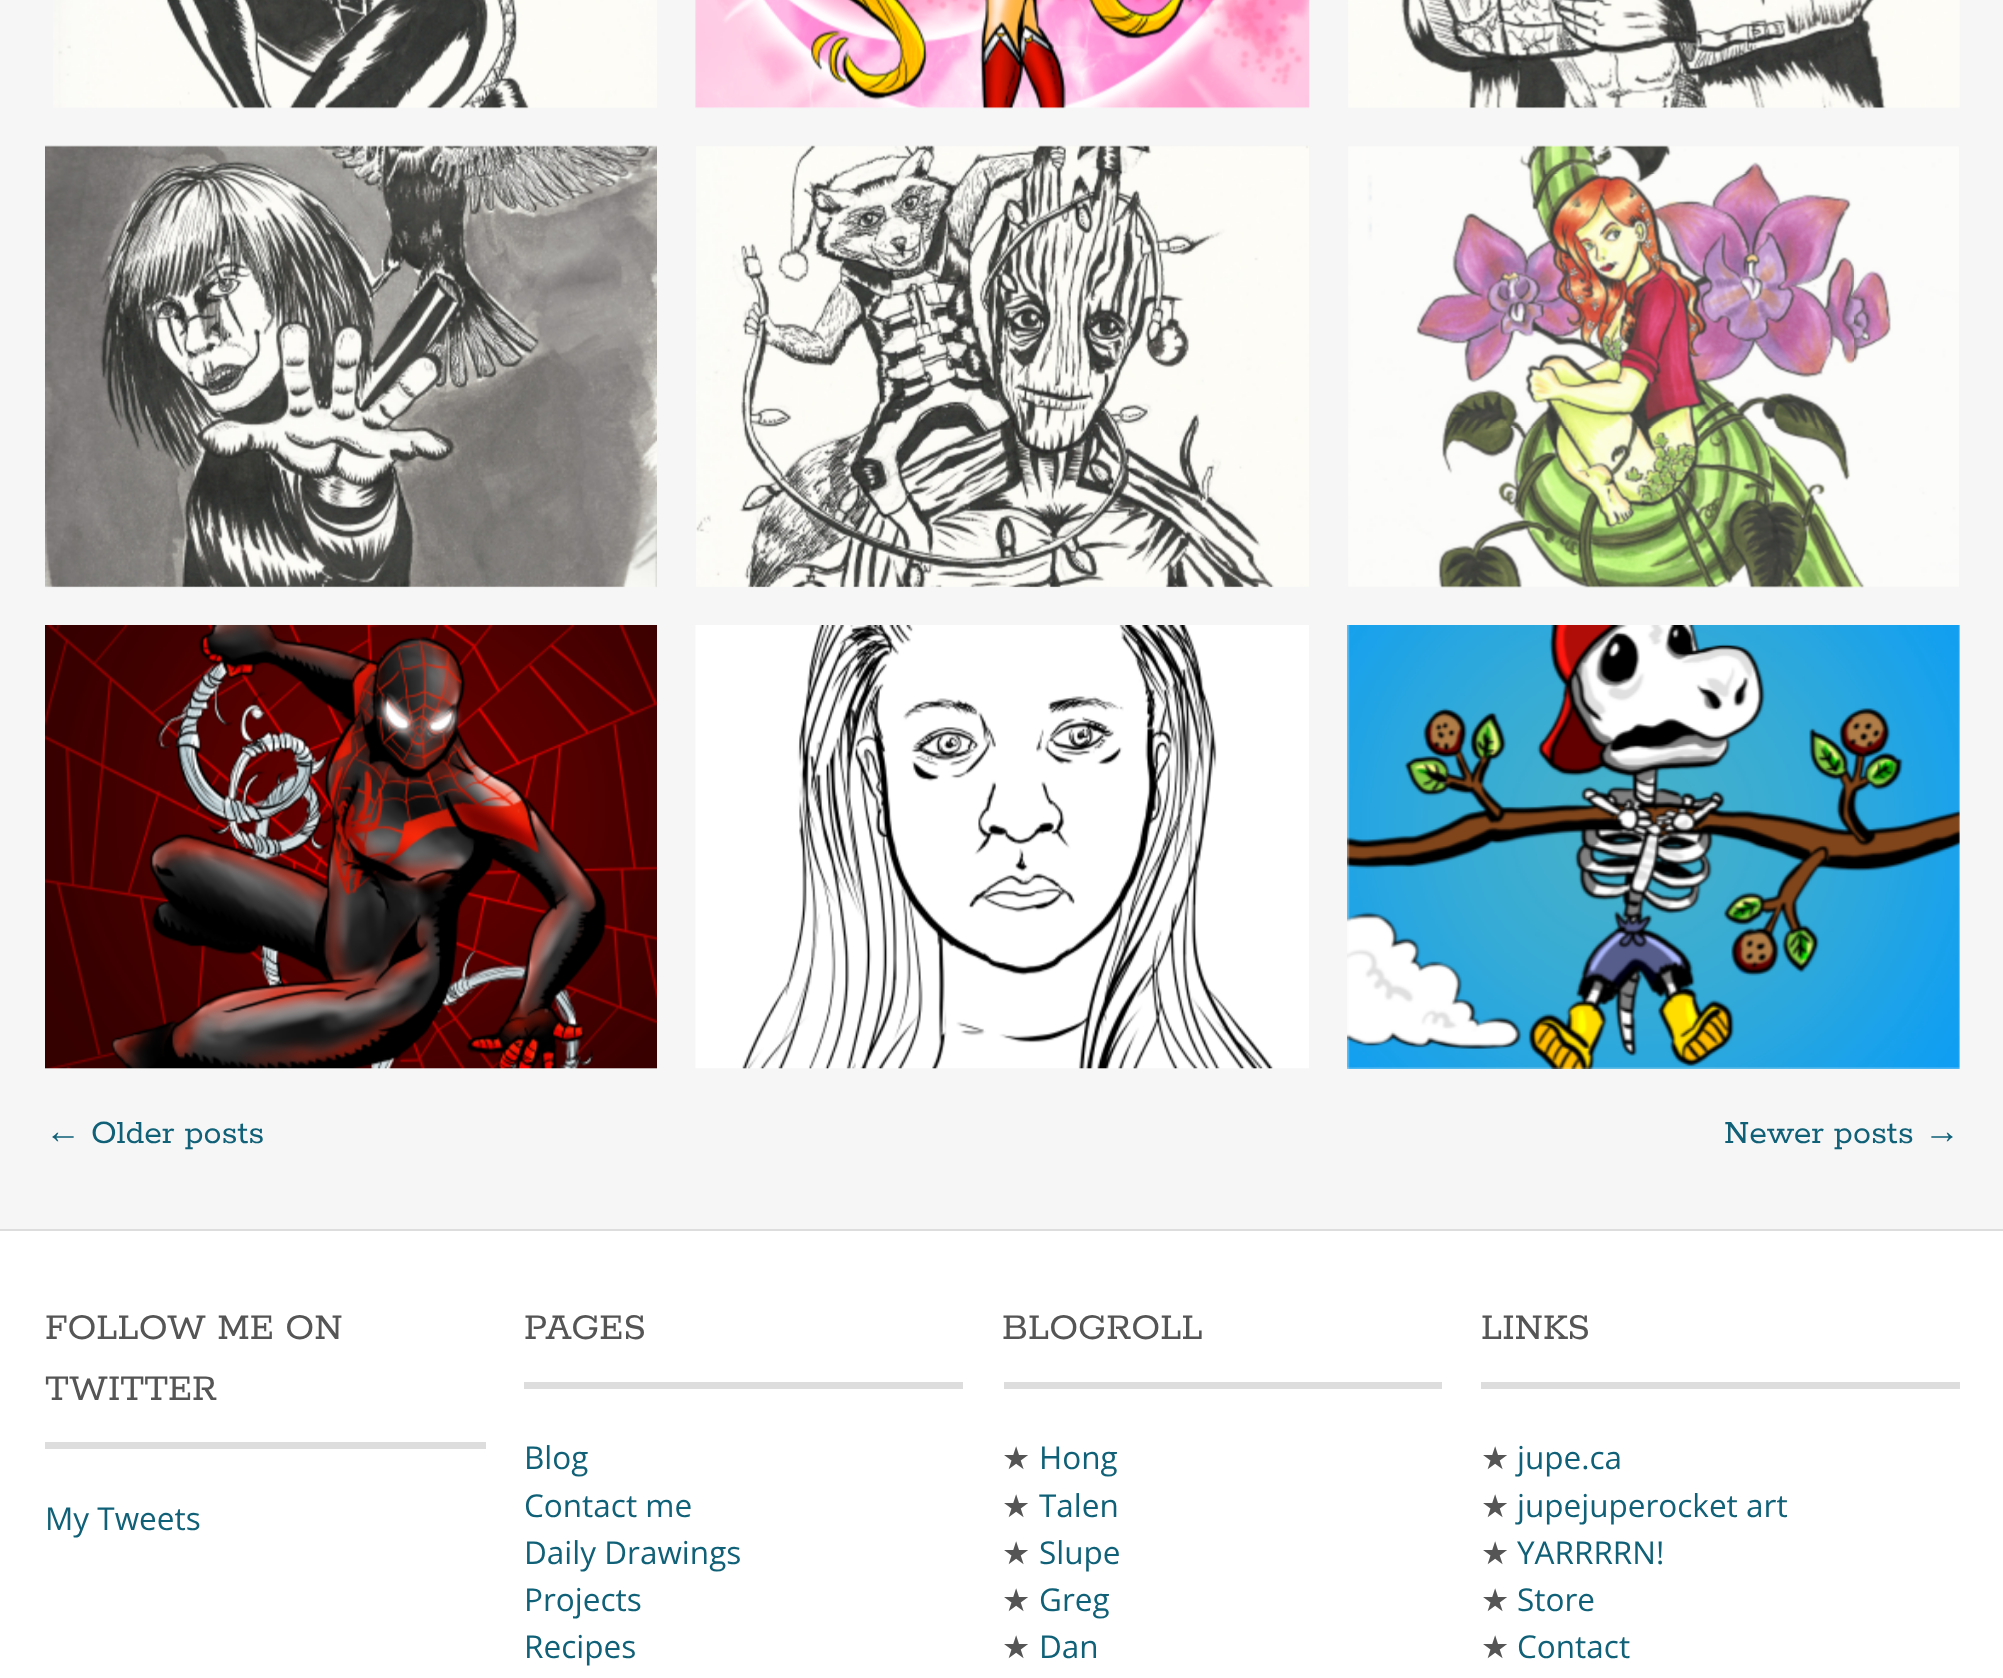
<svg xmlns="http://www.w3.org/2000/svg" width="2003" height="1678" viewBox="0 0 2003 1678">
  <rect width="100%" height="100%" fill="#f6f6f6"/>
  <image x="53" y="0" width="604" height="109" href="img/1.png"/>
  <image x="695" y="0" width="615" height="109" href="img/2.png"/>
  <image x="1348" y="0" width="612" height="109" href="img/3.png"/>
  <image x="45" y="145" width="612" height="443" href="img/4.png"/>
  <image x="696" y="145" width="613" height="443" href="img/5.png"/>
  <image x="1348" y="145" width="611" height="443" href="img/6.png"/>
  <image x="45" y="625" width="612" height="444" href="img/7.png"/>
  <image x="695" y="625" width="614" height="444" href="img/8.png"/>
  <image x="1347" y="625" width="613" height="444" href="img/9.png"/>
  <path d="M0 1231h2003v447H0z" fill="#fff"/>
  <path d="M0 1229h2003v2H0z" fill="#ddd"/>
  <path d="M45 1442h441v7H45z" fill="#ddd"/>
  <path d="M524 1382h439v7H524z" fill="#ddd"/>
  <path d="M1004 1382h438v7H1004z" fill="#ddd"/>
  <path d="M1481 1382h479v7H1481z" fill="#ddd"/>
  <text x="45" y="1143" font-family="Liberation Sans" font-size="36" fill="#106177">←</text>
  <g font-family="Rokkitt" font-size="36" fill="#106177">
    <text x="91" y="1143">Older posts</text>
    <text x="1724" y="1143">Newer posts</text>
  </g>
  <text x="1924" y="1143" font-family="Liberation Sans" font-size="36" fill="#106177">→</text>
  <g font-family="Rokkitt" font-size="40.5" fill="#555">
    <text x="45" y="1339">FOLLOW ME ON</text>
    <text x="45" y="1400">TWITTER</text>
  </g>
  <text x="45" y="1530" font-family="Open Sans" font-size="31.5" fill="#106177">My Tweets</text>
  <text x="524" y="1339" font-family="Rokkitt" font-size="40.5" fill="#555">PAGES</text>
  <g font-family="Open Sans" font-size="31.5" fill="#106177">
    <text x="524" y="1469">Blog</text>
    <text x="524" y="1517">Contact me</text>
    <text x="524" y="1564">Daily Drawings</text>
    <text x="524" y="1611">Projects</text>
    <text x="524" y="1658">Recipes</text>
  </g>
  <text x="1002" y="1339" font-family="Rokkitt" font-size="40.5" fill="#555">BLOGROLL</text>
  <text x="1002" y="1469" font-family="DejaVu Sans" font-size="31.5" fill="#555">★</text>
  <text x="1039" y="1469" font-family="Open Sans" font-size="31.5" fill="#106177">Hong</text>
  <text x="1002" y="1517" font-family="DejaVu Sans" font-size="31.5" fill="#555">★</text>
  <text x="1039" y="1517" font-family="Open Sans" font-size="31.5" fill="#106177">Talen</text>
  <text x="1002" y="1564" font-family="DejaVu Sans" font-size="31.5" fill="#555">★</text>
  <text x="1039" y="1564" font-family="Open Sans" font-size="31.5" fill="#106177">Slupe</text>
  <text x="1002" y="1611" font-family="DejaVu Sans" font-size="31.5" fill="#555">★</text>
  <text x="1039" y="1611" font-family="Open Sans" font-size="31.5" fill="#106177">Greg</text>
  <text x="1002" y="1658" font-family="DejaVu Sans" font-size="31.5" fill="#555">★</text>
  <text x="1039" y="1658" font-family="Open Sans" font-size="31.5" fill="#106177">Dan</text>
  <text x="1481" y="1339" font-family="Rokkitt" font-size="40.5" fill="#555">LINKS</text>
  <text x="1481" y="1469" font-family="DejaVu Sans" font-size="31.5" fill="#555">★</text>
  <text x="1517" y="1469" font-family="Open Sans" font-size="31.5" fill="#106177">jupe.ca</text>
  <text x="1481" y="1517" font-family="DejaVu Sans" font-size="31.5" fill="#555">★</text>
  <text x="1517" y="1517" font-family="Open Sans" font-size="31.5" fill="#106177">jupejuperocket art</text>
  <text x="1481" y="1564" font-family="DejaVu Sans" font-size="31.5" fill="#555">★</text>
  <text x="1517" y="1564" font-family="Open Sans" font-size="31.5" fill="#106177">YARRRRN!</text>
  <text x="1481" y="1611" font-family="DejaVu Sans" font-size="31.5" fill="#555">★</text>
  <text x="1517" y="1611" font-family="Open Sans" font-size="31.5" fill="#106177">Store</text>
  <text x="1481" y="1658" font-family="DejaVu Sans" font-size="31.5" fill="#555">★</text>
  <text x="1517" y="1658" font-family="Open Sans" font-size="31.5" fill="#106177">Contact</text>
</svg>
